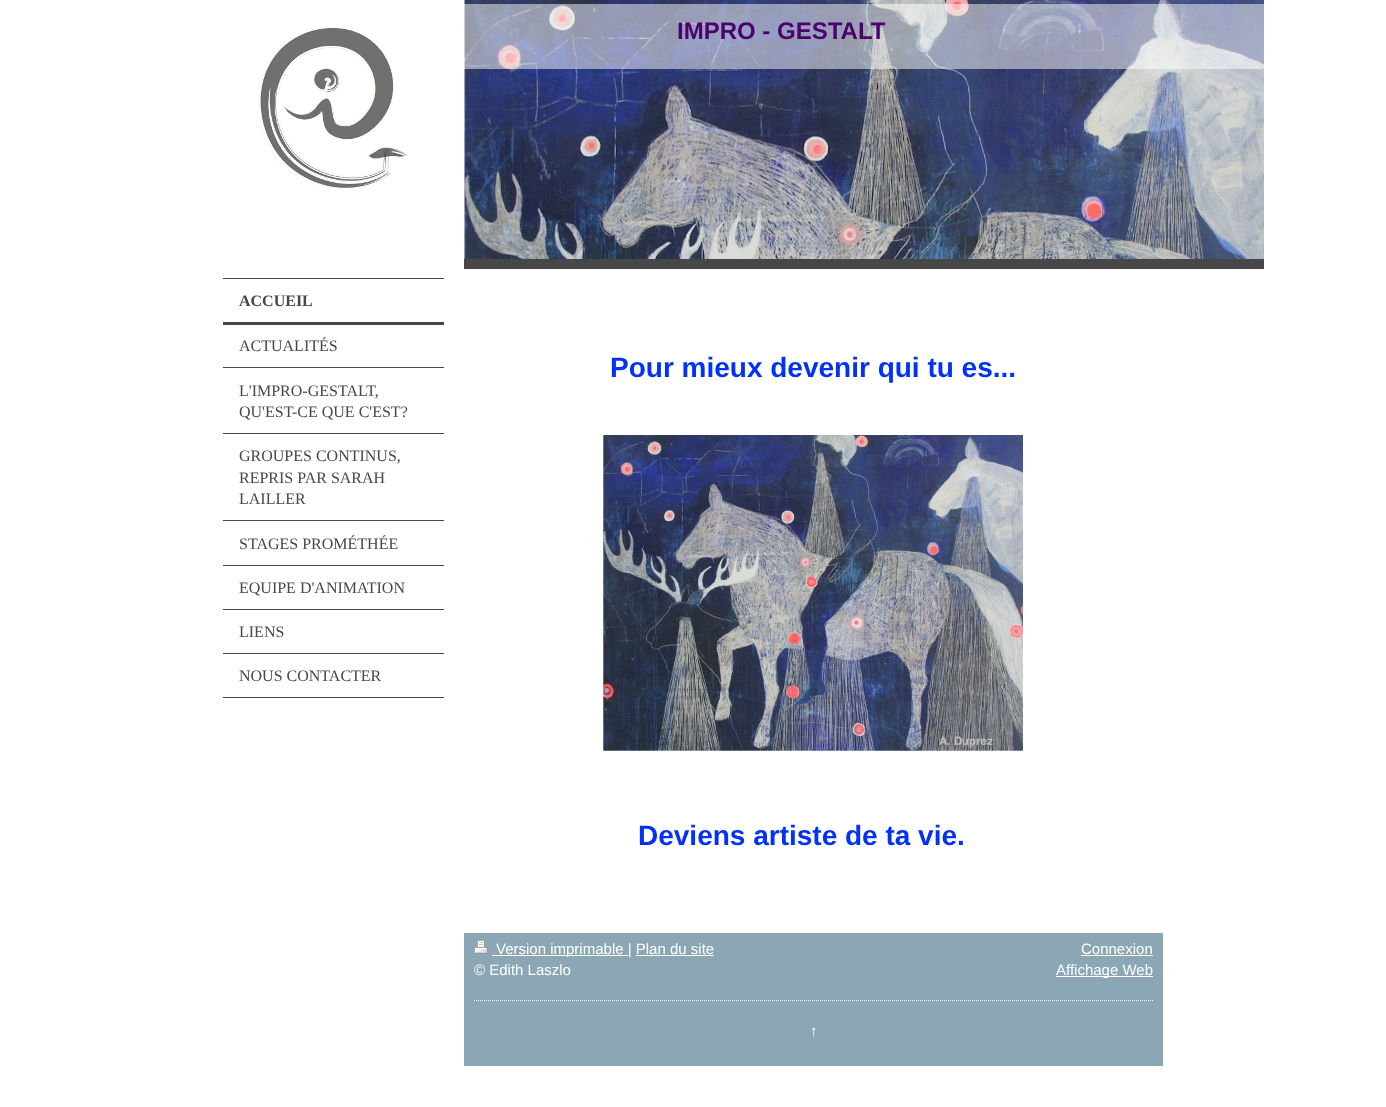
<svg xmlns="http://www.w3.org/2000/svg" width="1386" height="1107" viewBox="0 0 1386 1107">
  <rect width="100%" height="100%" fill="#fff"/>
  <image x="258" y="28" width="150" height="162" href="img/1.png"/>
  <path d="M223 278h221v1H223z" fill="#474747"/>
  <path d="M223 322h221v3H223z" fill="#474747"/>
  <path d="M223 367h221v1H223z" fill="#474747"/>
  <path d="M223 433h221v1H223z" fill="#474747"/>
  <path d="M223 520h221v1H223z" fill="#474747"/>
  <path d="M223 565h221v1H223z" fill="#474747"/>
  <path d="M223 609h221v1H223z" fill="#474747"/>
  <path d="M223 653h221v1H223z" fill="#474747"/>
  <path d="M223 697h221v1H223z" fill="#474747"/>
  <path d="M464 259h800v10H464z" fill="#474747"/>
  <image x="464" y="0" width="800" height="259" href="img/2.png"/>
  <path d="M464 4h800v65H464z" fill="#ffffff80"/>
  <image x="603" y="435" width="420" height="316" href="img/3.png"/>
  <path d="M464 933h699v133H464z" fill="#8ba7b5"/>
  <image x="474" y="940" width="14" height="14" href="img/4.png"/>
  <path d="M492 955h136v1H492z" fill="#fff"/>
  <path d="M636 955h78v1H636z" fill="#fff"/>
  <path d="M1081 955h72v1H1081z" fill="#fff"/>
  <path d="M1056 976h97v1H1056z" fill="#fff"/>
  <path d="M474 1000.5H1153" fill="none" stroke="#fff" stroke-dasharray="1 1"/>
  <text x="239" y="306" font-family="Liberation Serif" font-size="16" font-weight="bold" fill="#474747">ACCUEIL</text>
  <g font-family="Liberation Serif" font-size="16" fill="#474747">
    <text x="239" y="351">ACTUALITÉS</text>
    <text x="239" y="396">L'IMPRO-GESTALT,</text>
    <text x="239" y="417">QU'EST-CE QUE C'EST?</text>
    <text x="239" y="461">GROUPES CONTINUS,</text>
    <text x="239" y="483">REPRIS PAR SARAH</text>
    <text x="239" y="504">LAILLER</text>
    <text x="239" y="549">STAGES PROMÉTHÉE</text>
    <text x="239" y="593">EQUIPE D'ANIMATION</text>
    <text x="239" y="637">LIENS</text>
    <text x="239" y="681">NOUS CONTACTER</text>
  </g>
  <text x="677" y="39" font-family="Liberation Sans" font-size="24" font-weight="bold" fill="#4a026e">IMPRO - GESTALT</text>
  <g font-family="Liberation Sans" font-size="28" font-weight="bold" fill="#0231f9">
    <text x="610" y="377">Pour mieux devenir qui tu es...</text>
    <text x="638" y="845">Deviens artiste de ta vie.</text>
  </g>
  <g font-family="Liberation Sans" font-size="15" fill="#fff">
    <text x="496" y="954">Version imprimable | Plan du site</text>
    <text x="474" y="975">© Edith Laszlo</text>
    <text x="1081" y="954">Connexion</text>
    <text x="1056" y="975">Affichage Web</text>
    <text x="810" y="1036">↑</text>
  </g>
</svg>
